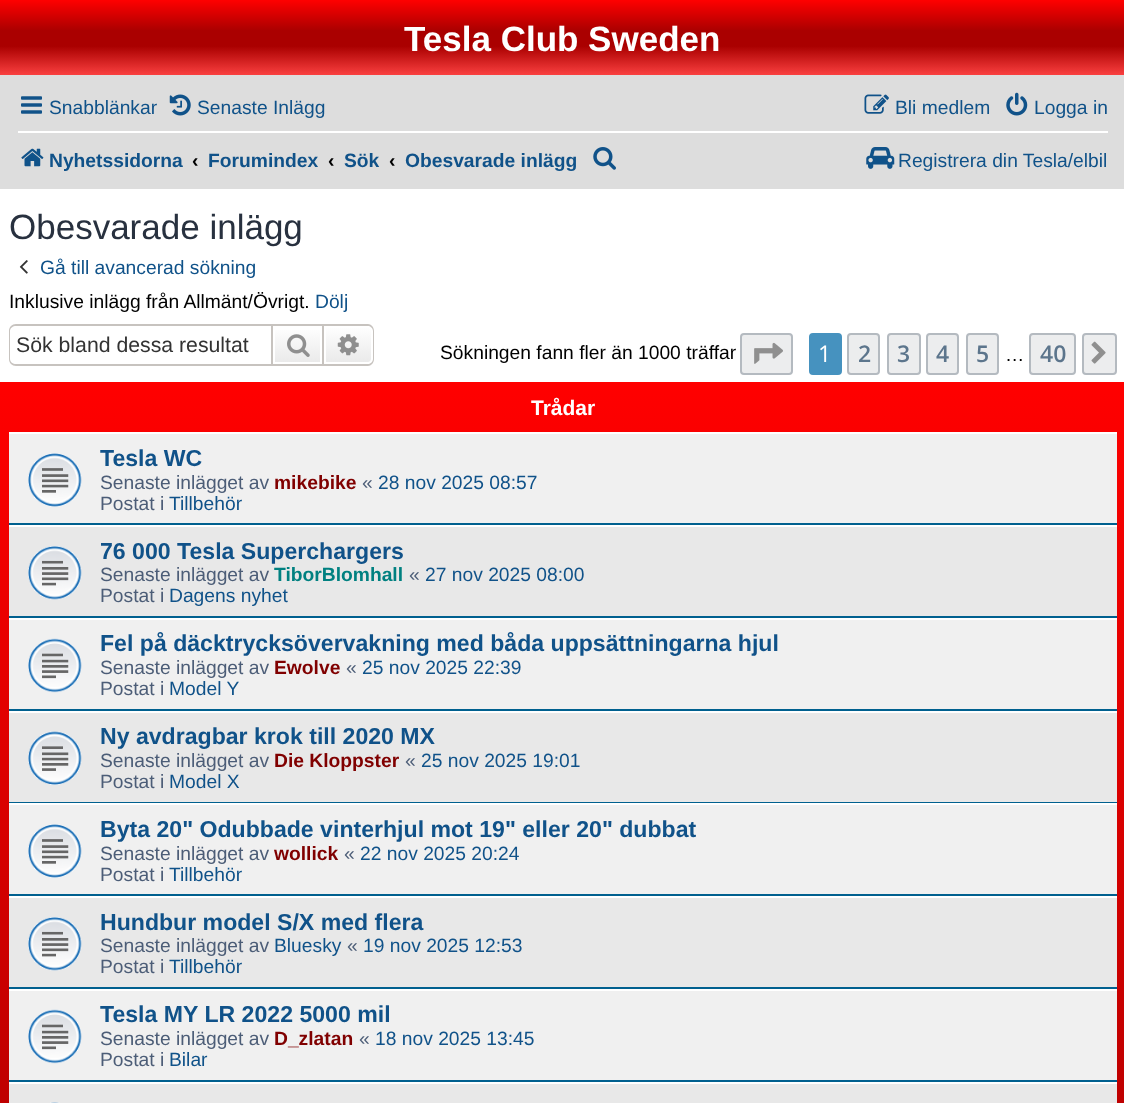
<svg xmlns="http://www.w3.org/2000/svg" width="1124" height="1103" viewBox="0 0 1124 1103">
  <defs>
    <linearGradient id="g1" gradientUnits="userSpaceOnUse" x1="563" y1="0" x2="563" y2="77"><stop offset="0" stop-color="#f00"/><stop offset="0.4" stop-color="#a00"/><stop offset="0.6" stop-color="#a00"/><stop offset="1" stop-color="#f44"/></linearGradient>
    <linearGradient id="g2" gradientUnits="userSpaceOnUse" x1="298" y1="326" x2="298" y2="364"><stop offset="0" stop-color="#fff"/><stop offset="1" stop-color="#e9e9e9"/></linearGradient>
    <linearGradient id="g3" gradientUnits="userSpaceOnUse" x1="348" y1="326" x2="348" y2="364"><stop offset="0" stop-color="#fff"/><stop offset="1" stop-color="#e9e9e9"/></linearGradient>
    <linearGradient id="g4" gradientUnits="userSpaceOnUse" x1="563" y1="382" x2="563" y2="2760"><stop offset="0" stop-color="#f00"/><stop offset="0.4" stop-color="#a00"/><stop offset="0.6" stop-color="#a00"/><stop offset="1" stop-color="#f44"/></linearGradient>
  </defs>
  <rect width="100%" height="100%" fill="#fff"/>
  <path d="M0 0h1124v75H0z" fill="url(#g1)"/>
  <path d="M0 75h1124v114H0z" fill="#ddd"/>
  <image x="21" y="96" width="21" height="18" href="img/1.png"/>
  <image x="169" y="94" width="22" height="22" href="img/2.png"/>
  <image x="864" y="94" width="25" height="20" href="img/3.png"/>
  <image x="1006" y="92" width="22" height="24" href="img/4.png"/>
  <path d="M18 131h1090v2H18z" fill="#fff"/>
  <image x="21" y="148" width="23" height="19" href="img/5.png"/>
  <image x="593" y="147" width="23" height="23" href="img/6.png"/>
  <image x="866" y="147" width="29" height="22" href="img/7.png"/>
  <image x="19" y="260" width="9" height="14" href="img/8.png"/>
  <path d="M16 324H271V366H16C12 366 9 363 9 359V331C9 327 12 324 16 324ZM16 326H271V364H16C13 364 10 362 10 359V331C10 328 13 326 16 326Z" fill="#c7c3bf" fill-rule="evenodd"/>
  <path d="M275 330h45v32H275z" fill="url(#g2)"/>
  <path d="M272 325h51v40H272z" fill="none" stroke="#c7c3bf" stroke-width="2"/>
  <image x="287" y="334" width="23" height="23" href="img/9.png"/>
  <path d="M325 327H368C370 327 372 329 372 331V359C372 361 370 363 368 363H325Z" fill="url(#g3)" stroke="#fff" stroke-width="2"/>
  <path d="M324 324H368C371 324 374 327 374 331V359C374 363 371 366 368 366H324ZM324 326H368C370 326 373 328 373 331V359C373 362 370 364 368 364H324Z" fill="#c7c3bf" fill-rule="evenodd"/>
  <image x="337" y="334" width="22" height="22" href="img/10.png"/>
  <rect x="741" y="334" width="51" height="40" rx="3" fill="#ecedee" stroke="#b4bac0" stroke-width="2"/>
  <image x="754" y="342" width="29" height="22" href="img/11.png"/>
  <rect x="810" y="334" width="31" height="40" rx="3" fill="#4692bf" stroke="#4692bf" stroke-width="2"/>
  <rect x="848" y="334" width="31" height="40" rx="3" fill="#ecedee" stroke="#b4bac0" stroke-width="2"/>
  <rect x="888" y="334" width="32" height="40" rx="3" fill="#ecedee" stroke="#b4bac0" stroke-width="2"/>
  <rect x="927" y="334" width="31" height="40" rx="3" fill="#ecedee" stroke="#b4bac0" stroke-width="2"/>
  <rect x="967" y="334" width="31" height="40" rx="3" fill="#ecedee" stroke="#b4bac0" stroke-width="2"/>
  <rect x="1030" y="334" width="45" height="40" rx="3" fill="#ecedee" stroke="#b4bac0" stroke-width="2"/>
  <rect x="1083" y="334" width="33" height="40" rx="3" fill="#ecedee" stroke="#b4bac0" stroke-width="2"/>
  <image x="1091" y="341" width="15" height="23" href="img/12.png"/>
  <path d="M0 382h1124v721H0z" fill="url(#g4)"/>
  <path d="M9 434h1108v89H9z" fill="#f0f0f0"/>
  <path d="M9 432h1108v2H9z" fill="#fff"/>
  <path d="M9 523h1108v2H9z" fill="#00608f"/>
  <image x="28" y="453" width="54" height="54" href="img/13.png"/>
  <path d="M9 527h1108v89H9z" fill="#e8e8e8"/>
  <path d="M9 525h1108v2H9z" fill="#fff"/>
  <path d="M9 616h1108v2H9z" fill="#00608f"/>
  <image x="28" y="546" width="54" height="54" href="img/14.png"/>
  <path d="M9 620h1108v89H9z" fill="#f0f0f0"/>
  <path d="M9 618h1108v2H9z" fill="#fff"/>
  <path d="M9 709h1108v2H9z" fill="#00608f"/>
  <image x="28" y="638" width="54" height="55" href="img/15.png"/>
  <path d="M9 713h1108v89H9z" fill="#e8e8e8"/>
  <path d="M9 711h1108v2H9z" fill="#fff"/>
  <path d="M9 802h1108v1H9z" fill="#00608f"/>
  <image x="28" y="731" width="54" height="54" href="img/16.png"/>
  <path d="M9 805h1108v89H9z" fill="#f0f0f0"/>
  <path d="M9 803h1108v2H9z" fill="#fff"/>
  <path d="M9 894h1108v2H9z" fill="#00608f"/>
  <image x="28" y="824" width="54" height="54" href="img/13.png"/>
  <path d="M9 898h1108v89H9z" fill="#e8e8e8"/>
  <path d="M9 896h1108v2H9z" fill="#fff"/>
  <path d="M9 987h1108v2H9z" fill="#00608f"/>
  <image x="28" y="917" width="54" height="54" href="img/14.png"/>
  <path d="M9 991h1108v89H9z" fill="#f0f0f0"/>
  <path d="M9 989h1108v2H9z" fill="#fff"/>
  <path d="M9 1080h1108v2H9z" fill="#00608f"/>
  <image x="28" y="1009" width="54" height="55" href="img/15.png"/>
  <path d="M9 1084h1108v19H9z" fill="#e8e8e8"/>
  <path d="M9 1082h1108v2H9z" fill="#fff"/>
  <image x="50" y="1102" width="10" height="1" href="img/17.png"/>
  <text x="404" y="51" font-family="Liberation Sans" font-size="35" font-weight="bold" fill="#fff">Tesla Club Sweden</text>
  <g font-family="Liberation Sans" font-size="19.25" fill="#105289">
    <text x="49" y="114">Snabblänkar</text>
    <text x="197" y="114">Senaste Inlägg</text>
    <text x="895" y="114">Bli medlem</text>
    <text x="1034" y="114">Logga in</text>
  </g>
  <text x="49" y="167" font-family="Liberation Sans" font-size="19.25" font-weight="bold" fill="#105289">Nyhetssidorna</text>
  <text x="192" y="167" font-family="Liberation Sans" font-size="19.25" font-weight="bold" fill="#000">‹</text>
  <text x="208" y="167" font-family="Liberation Sans" font-size="19.25" font-weight="bold" fill="#105289">Forumindex</text>
  <text x="328" y="167" font-family="Liberation Sans" font-size="19.25" font-weight="bold" fill="#000">‹</text>
  <text x="344" y="167" font-family="Liberation Sans" font-size="19.25" font-weight="bold" fill="#105289">Sök</text>
  <text x="389" y="167" font-family="Liberation Sans" font-size="19.25" font-weight="bold" fill="#000">‹</text>
  <text x="405" y="167" font-family="Liberation Sans" font-size="19.25" font-weight="bold" fill="#105289">Obesvarade inlägg</text>
  <text x="898" y="167" font-family="Liberation Sans" font-size="19.25" fill="#105289">Registrera din Tesla/elbil</text>
  <text x="9" y="239" font-family="Liberation Sans" font-size="35" fill="#28313f">Obesvarade inlägg</text>
  <text x="40" y="274" font-family="Liberation Sans" font-size="19.25" fill="#105289">Gå till avancerad sökning</text>
  <text x="9" y="308" font-family="Liberation Sans" font-size="19.25" fill="#000">Inklusive inlägg från Allmänt/Övrigt.</text>
  <text x="315" y="308" font-family="Liberation Sans" font-size="19.25" fill="#105289">Dölj</text>
  <text x="16" y="352" font-family="Liberation Sans" font-size="21.25" fill="#333">Sök bland dessa resultat</text>
  <text x="440" y="359" font-family="Liberation Sans" font-size="19.25" fill="#000">Sökningen fann fler än 1000 träffar</text>
  <text x="818" y="362" font-family="Open Sans" font-size="23" fill="#fff">1</text>
  <g font-family="Open Sans" font-size="23" font-weight="600" fill="#5c758c">
    <text x="858" y="362">2</text>
    <text x="897" y="362">3</text>
    <text x="936" y="362">4</text>
    <text x="976" y="362">5</text>
  </g>
  <text x="1005" y="361" font-family="Liberation Sans" font-size="19.25" fill="#000">…</text>
  <text x="1040" y="362" font-family="Open Sans" font-size="23" font-weight="600" fill="#5c758c">40</text>
  <text x="531" y="415" font-family="Liberation Sans" font-size="21" font-weight="bold" fill="#fff">Trådar</text>
  <text x="100" y="466" font-family="Liberation Sans" font-size="23.1" font-weight="bold" fill="#105289">Tesla WC</text>
  <text x="100" y="489" font-family="Liberation Sans" font-size="19.25" fill="#4c5d77">Senaste inlägget av</text>
  <text x="274" y="489" font-family="Liberation Sans" font-size="19.25" font-weight="bold" fill="#800000">mikebike</text>
  <text x="362" y="489" font-family="Liberation Sans" font-size="19.25" fill="#4c5d77">«</text>
  <text x="378" y="489" font-family="Liberation Sans" font-size="19.25" fill="#105289">28 nov 2025 08:57</text>
  <text x="100" y="510" font-family="Liberation Sans" font-size="19.25" fill="#4c5d77">Postat i</text>
  <text x="169" y="510" font-family="Liberation Sans" font-size="19.25" fill="#105289">Tillbehör</text>
  <text x="100" y="559" font-family="Liberation Sans" font-size="23.1" font-weight="bold" fill="#105289">76 000 Tesla Superchargers</text>
  <text x="100" y="581" font-family="Liberation Sans" font-size="19.25" fill="#4c5d77">Senaste inlägget av</text>
  <text x="274" y="581" font-family="Liberation Sans" font-size="19.25" font-weight="bold" fill="#008080">TiborBlomhall</text>
  <text x="409" y="581" font-family="Liberation Sans" font-size="19.25" fill="#4c5d77">«</text>
  <text x="425" y="581" font-family="Liberation Sans" font-size="19.25" fill="#105289">27 nov 2025 08:00</text>
  <text x="100" y="602" font-family="Liberation Sans" font-size="19.25" fill="#4c5d77">Postat i</text>
  <text x="169" y="602" font-family="Liberation Sans" font-size="19.25" fill="#105289">Dagens nyhet</text>
  <text x="100" y="651" font-family="Liberation Sans" font-size="23.1" font-weight="bold" fill="#105289">Fel på däcktrycksövervakning med båda uppsättningarna hjul</text>
  <text x="100" y="674" font-family="Liberation Sans" font-size="19.25" fill="#4c5d77">Senaste inlägget av</text>
  <text x="274" y="674" font-family="Liberation Sans" font-size="19.25" font-weight="bold" fill="#800000">Ewolve</text>
  <text x="346" y="674" font-family="Liberation Sans" font-size="19.25" fill="#4c5d77">«</text>
  <text x="362" y="674" font-family="Liberation Sans" font-size="19.25" fill="#105289">25 nov 2025 22:39</text>
  <text x="100" y="695" font-family="Liberation Sans" font-size="19.25" fill="#4c5d77">Postat i</text>
  <text x="169" y="695" font-family="Liberation Sans" font-size="19.25" fill="#105289">Model Y</text>
  <text x="100" y="744" font-family="Liberation Sans" font-size="23.1" font-weight="bold" fill="#105289">Ny avdragbar krok till 2020 MX</text>
  <text x="100" y="767" font-family="Liberation Sans" font-size="19.25" fill="#4c5d77">Senaste inlägget av</text>
  <text x="274" y="767" font-family="Liberation Sans" font-size="19.25" font-weight="bold" fill="#800000">Die Kloppster</text>
  <text x="405" y="767" font-family="Liberation Sans" font-size="19.25" fill="#4c5d77">«</text>
  <text x="421" y="767" font-family="Liberation Sans" font-size="19.25" fill="#105289">25 nov 2025 19:01</text>
  <text x="100" y="788" font-family="Liberation Sans" font-size="19.25" fill="#4c5d77">Postat i</text>
  <text x="169" y="788" font-family="Liberation Sans" font-size="19.25" fill="#105289">Model X</text>
  <text x="100" y="837" font-family="Liberation Sans" font-size="23.1" font-weight="bold" fill="#105289">Byta 20" Odubbade vinterhjul mot 19" eller 20" dubbat</text>
  <text x="100" y="860" font-family="Liberation Sans" font-size="19.25" fill="#4c5d77">Senaste inlägget av</text>
  <text x="274" y="860" font-family="Liberation Sans" font-size="19.25" font-weight="bold" fill="#800000">wollick</text>
  <text x="344" y="860" font-family="Liberation Sans" font-size="19.25" fill="#4c5d77">«</text>
  <text x="360" y="860" font-family="Liberation Sans" font-size="19.25" fill="#105289">22 nov 2025 20:24</text>
  <text x="100" y="881" font-family="Liberation Sans" font-size="19.25" fill="#4c5d77">Postat i</text>
  <text x="169" y="881" font-family="Liberation Sans" font-size="19.25" fill="#105289">Tillbehör</text>
  <text x="100" y="930" font-family="Liberation Sans" font-size="23.1" font-weight="bold" fill="#105289">Hundbur model S/X med flera</text>
  <text x="100" y="952" font-family="Liberation Sans" font-size="19.25" fill="#4c5d77">Senaste inlägget av</text>
  <text x="274" y="952" font-family="Liberation Sans" font-size="19.25" fill="#105289">Bluesky</text>
  <text x="347" y="952" font-family="Liberation Sans" font-size="19.25" fill="#4c5d77">«</text>
  <text x="363" y="952" font-family="Liberation Sans" font-size="19.25" fill="#105289">19 nov 2025 12:53</text>
  <text x="100" y="973" font-family="Liberation Sans" font-size="19.25" fill="#4c5d77">Postat i</text>
  <text x="169" y="973" font-family="Liberation Sans" font-size="19.25" fill="#105289">Tillbehör</text>
  <text x="100" y="1022" font-family="Liberation Sans" font-size="23.1" font-weight="bold" fill="#105289">Tesla MY LR 2022 5000 mil</text>
  <text x="100" y="1045" font-family="Liberation Sans" font-size="19.25" fill="#4c5d77">Senaste inlägget av</text>
  <text x="274" y="1045" font-family="Liberation Sans" font-size="19.25" font-weight="bold" fill="#800000">D_zlatan</text>
  <text x="359" y="1045" font-family="Liberation Sans" font-size="19.25" fill="#4c5d77">«</text>
  <text x="375" y="1045" font-family="Liberation Sans" font-size="19.25" fill="#105289">18 nov 2025 13:45</text>
  <text x="100" y="1066" font-family="Liberation Sans" font-size="19.25" fill="#4c5d77">Postat i</text>
  <text x="169" y="1066" font-family="Liberation Sans" font-size="19.25" fill="#105289">Bilar</text>
</svg>
